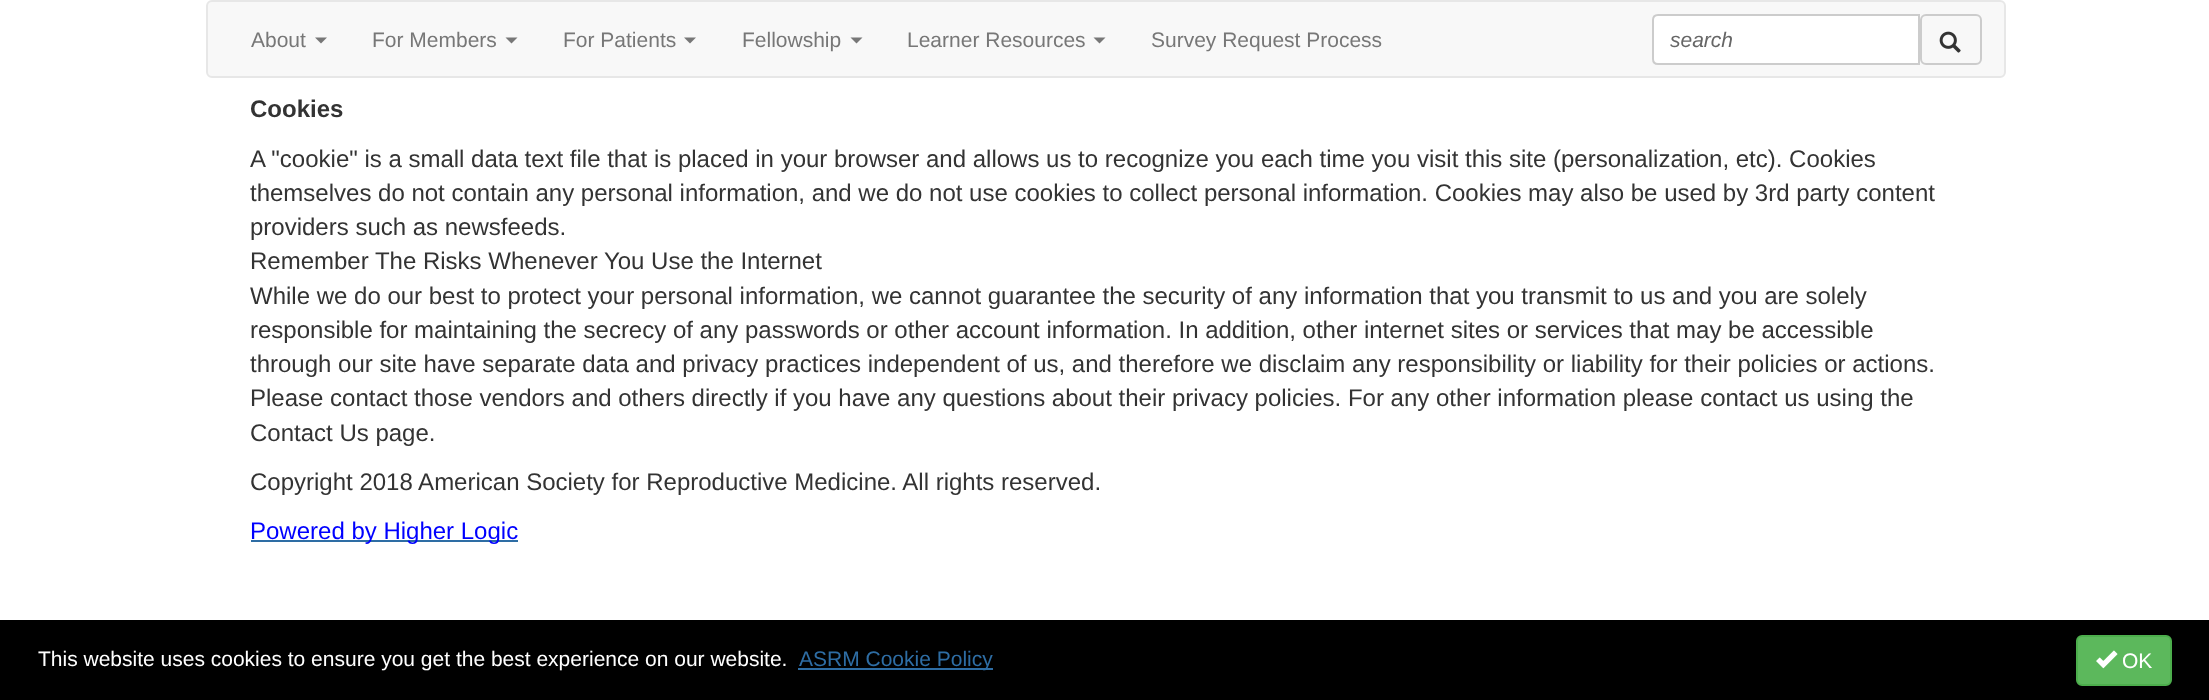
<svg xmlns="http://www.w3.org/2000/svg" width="2209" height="700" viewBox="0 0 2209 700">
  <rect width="100%" height="100%" fill="#fff"/>
  <rect x="207" y="1" width="1798" height="76" rx="5" fill="#f8f8f8" stroke="#e7e7e7" stroke-width="2"/>
  <path d="M315 37.5H327L321 43.5Z" fill="#777"/>
  <path d="M505.5 37.5H517.5L511.5 43.5Z" fill="#777"/>
  <path d="M684 37.5H696L690 43.5Z" fill="#777"/>
  <path d="M850.5 37.5H862.5L856.5 43.5Z" fill="#777"/>
  <path d="M1093.5 37.5H1105.5L1099.5 43.5Z" fill="#777"/>
  <path d="M1658 15H1919V64H1658C1655 64 1653 62 1653 59V20C1653 17 1655 15 1658 15Z" fill="#fff" stroke="#ccc" stroke-width="2"/>
  <rect x="1921" y="15" width="60" height="49" rx="5" fill="none" stroke="#ccc" stroke-width="2"/>
  <image x="1939" y="31" width="22" height="22" href="img/1.png"/>
  <path d="M251 540h267v2H251z" fill="#2e6da4"/>
  <path d="M0 620h2209v80H0z" fill="#000"/>
  <path d="M798 668h195v2H798z" fill="#2e6da4"/>
  <rect x="2077" y="636" width="94" height="49" rx="5" fill="#5cb85c" stroke="#4cae4c" stroke-width="2"/>
  <image x="2096" y="650" width="22" height="19" href="img/2.png"/>
  <g font-family="Liberation Sans" font-size="21" fill="#777">
    <text x="251" y="47">About</text>
    <text x="372" y="47">For Members</text>
    <text x="563" y="47">For Patients</text>
    <text x="742" y="47">Fellowship</text>
    <text x="907" y="47">Learner Resources</text>
    <text x="1151" y="47">Survey Request Process</text>
  </g>
  <text x="1670" y="47" font-family="Liberation Sans" font-size="21" font-style="italic" fill="#666">search</text>
  <text x="250" y="117" font-family="Liberation Sans" font-size="24" font-weight="bold" fill="#333">Cookies</text>
  <g font-family="Liberation Sans" font-size="24" fill="#333">
    <text x="250" y="167">A "cookie" is a small data text file that is placed in your browser and allows us to recognize you each time you visit this site (personalization, etc). Cookies</text>
    <text x="250" y="201">themselves do not contain any personal information, and we do not use cookies to collect personal information. Cookies may also be used by 3rd party content</text>
    <text x="250" y="235">providers such as newsfeeds.</text>
    <text x="250" y="269">Remember The Risks Whenever You Use the Internet</text>
    <text x="250" y="304">While we do our best to protect your personal information, we cannot guarantee the security of any information that you transmit to us and you are solely</text>
    <text x="250" y="338">responsible for maintaining the secrecy of any passwords or other account information. In addition, other internet sites or services that may be accessible</text>
    <text x="250" y="372">through our site have separate data and privacy practices independent of us, and therefore we disclaim any responsibility or liability for their policies or actions.</text>
    <text x="250" y="406">Please contact those vendors and others directly if you have any questions about their privacy policies. For any other information please contact us using the</text>
    <text x="250" y="441">Contact Us page.</text>
    <text x="250" y="490">Copyright 2018 American Society for Reproductive Medicine. All rights reserved.</text>
  </g>
  <text x="250" y="539" font-family="Liberation Sans" font-size="24" fill="#00f">Powered by Higher Logic</text>
  <text x="38" y="666" font-family="Liberation Sans" font-size="21" fill="#fff">This website uses cookies to ensure you get the best experience on our website.</text>
  <text x="799" y="666" font-family="Liberation Sans" font-size="21" fill="#2e6da4">ASRM Cookie Policy</text>
  <text x="2122" y="668" font-family="Liberation Sans" font-size="21" fill="#fff">OK</text>
</svg>
